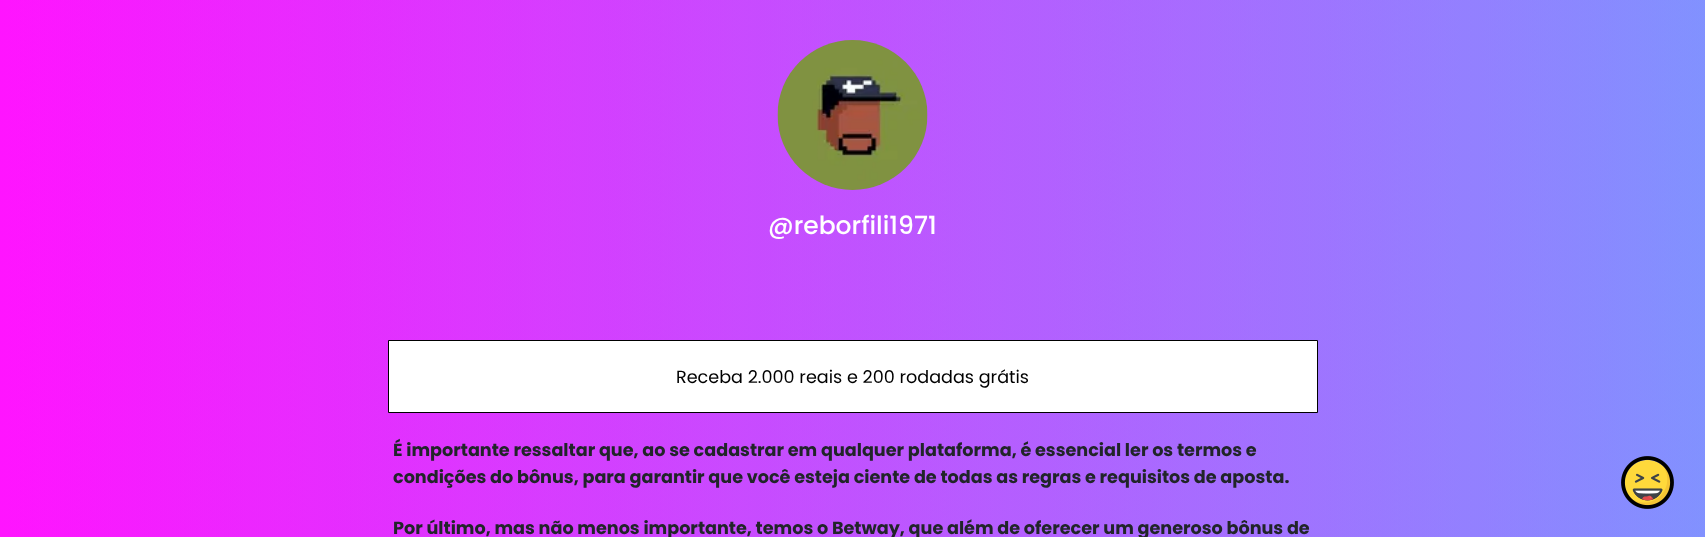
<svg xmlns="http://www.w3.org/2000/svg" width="1705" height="537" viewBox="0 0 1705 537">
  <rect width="100%" height="100%" fill="#fff"/>
  <image x="0" y="0" width="1705" height="537" href="img/1.png"/>
  <image x="777" y="40" width="151" height="150" href="img/2.png"/>
  <path d="M388.5 340.5h929v72H388.5z" fill="#fff" stroke="#000"/>
  <image x="1621" y="456" width="53" height="53" href="img/3.png"/>
  <text x="768" y="234" font-family="Poppins" font-size="25" font-weight="500" fill="#fff">@reborfili1971</text>
  <text x="676" y="383" font-family="Poppins" font-size="17.6" fill="#000">Receba 2.000 reais e 200 rodadas grátis</text>
  <g font-family="Poppins" font-size="17.6" font-weight="bold" fill="#212529">
    <text x="393" y="456">É importante ressaltar que, ao se cadastrar em qualquer plataforma, é essencial ler os termos e</text>
    <text x="393" y="483">condições do bônus, para garantir que você esteja ciente de todas as regras e requisitos de aposta.</text>
    <text x="393" y="534">Por último, mas não menos importante, temos o Betway, que além de oferecer um generoso bônus de</text>
  </g>
</svg>
